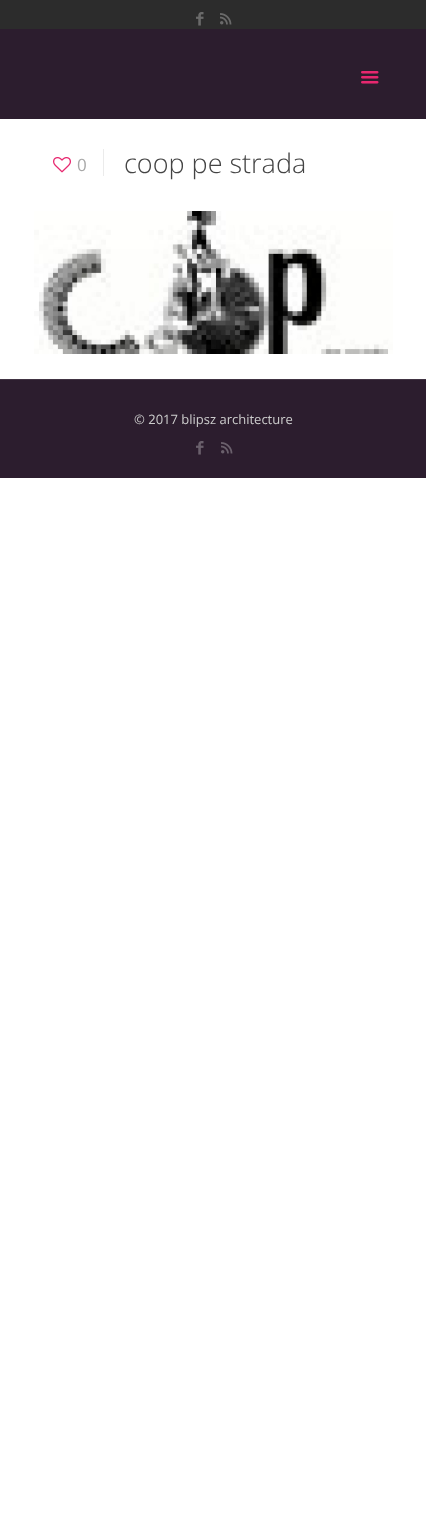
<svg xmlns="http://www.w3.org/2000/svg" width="426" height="1539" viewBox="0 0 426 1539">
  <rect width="100%" height="100%" fill="#fff"/>
  <path d="M0 29h426v90H0z" fill="#2c1d2e"/>
  <path d="M0 0h426v29H0z" fill="#2c2c2c"/>
  <image x="196" y="12" width="8" height="14" href="img/1.png"/>
  <image x="220" y="13" width="12" height="12" href="img/2.png"/>
  <image x="361" y="71" width="18" height="13" href="img/3.png"/>
  <image x="53" y="157" width="18" height="16" href="img/4.png"/>
  <path d="M103 149h1v27H103z" fill="#ebebeb"/>
  <image x="34" y="211" width="359" height="143" href="img/5.png"/>
  <path d="M0 380h426v98H0z" fill="#2c1d2e"/>
  <path d="M0 379h426v1H0z" fill="#413443"/>
  <image x="196" y="441" width="8" height="14" href="img/6.png"/>
  <image x="221" y="442" width="12" height="12" href="img/7.png"/>
  <text x="77" y="171" font-family="Open Sans" font-size="17" fill="#a8a8a8">0</text>
  <text x="124" y="173" font-family="Open Sans" font-size="27" font-weight="300" fill="#444">coop pe strada</text>
  <text x="134" y="424" font-family="Open Sans" font-size="13" fill="#ccc">© 2017 blipsz architecture</text>
</svg>
